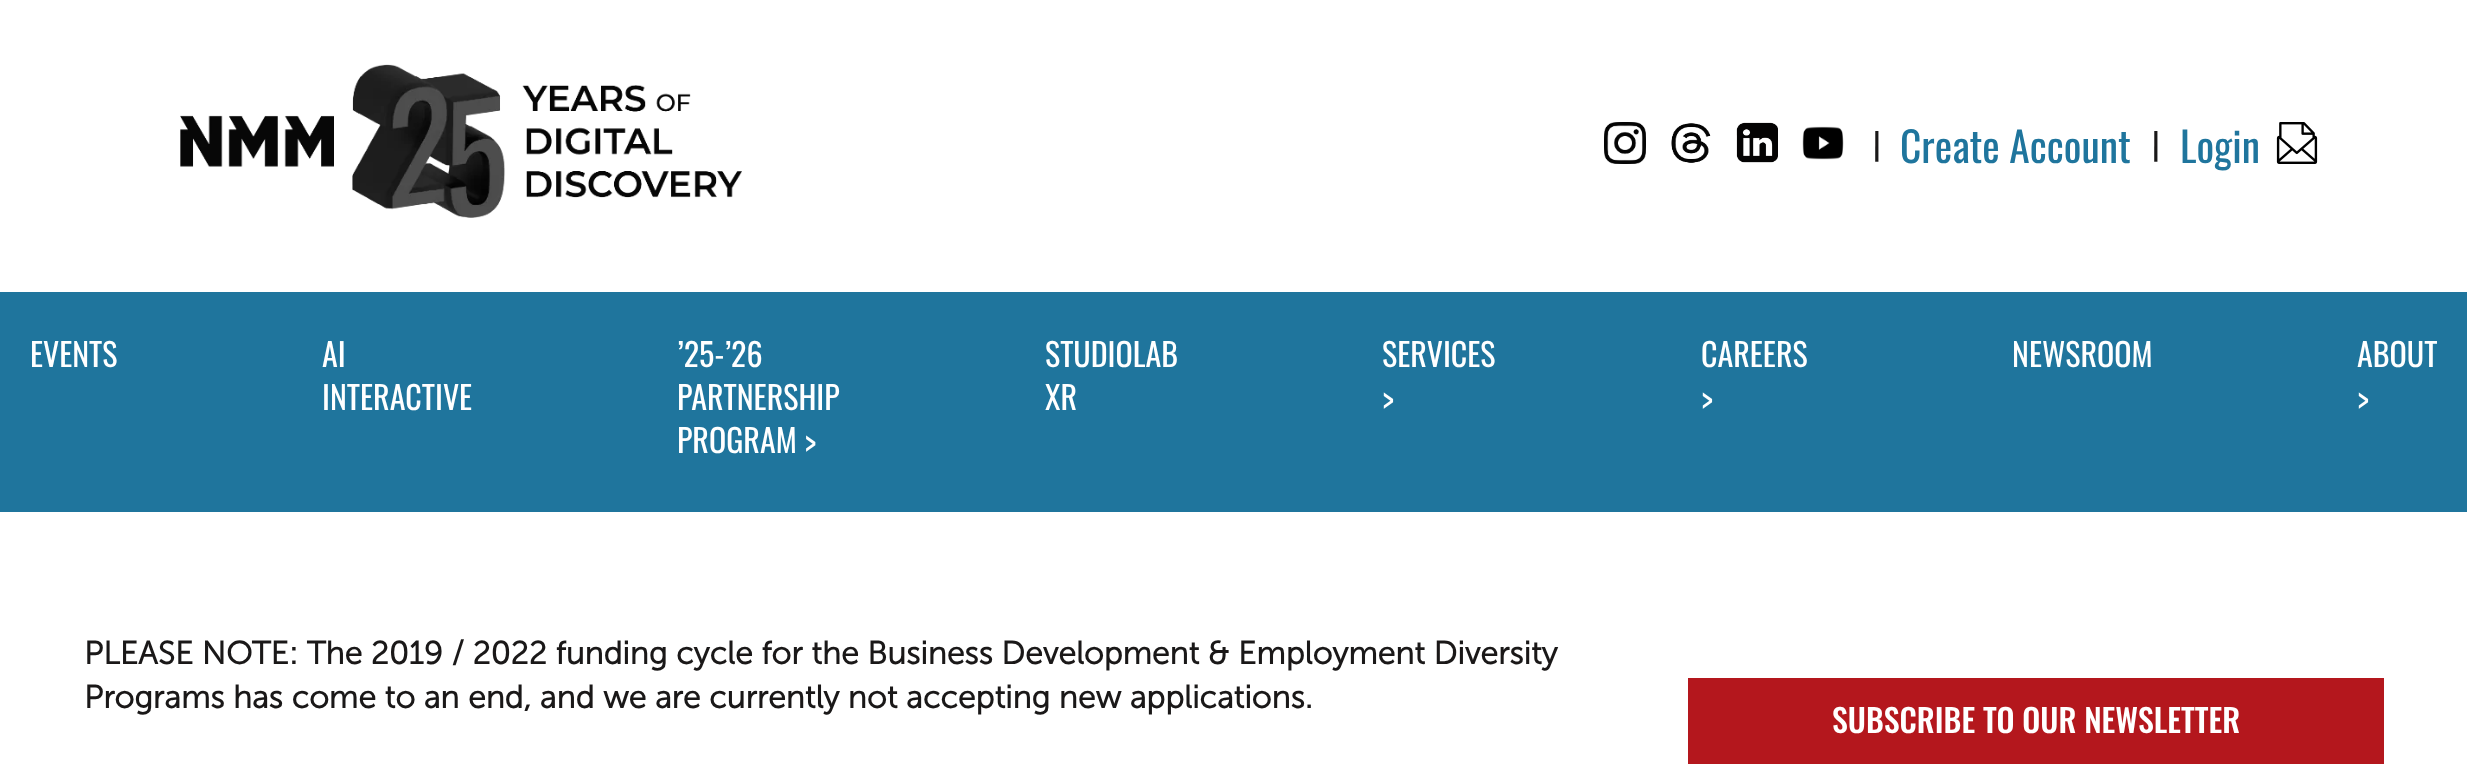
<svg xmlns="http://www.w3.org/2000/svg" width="2467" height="764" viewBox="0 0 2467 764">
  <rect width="100%" height="100%" fill="#fff"/>
  <image x="180" y="64" width="562" height="154" href="img/1.png"/>
  <image x="1604" y="122" width="42" height="42" href="img/2.png"/>
  <image x="1671" y="123" width="40" height="40" href="img/3.png"/>
  <image x="1736" y="122" width="42" height="41" href="img/4.png"/>
  <image x="1802" y="126" width="42" height="34" href="img/5.png"/>
  <image x="2276" y="122" width="42" height="42" href="img/6.png"/>
  <path d="M0 292h2467v220H0z" fill="#1f759d"/>
  <path d="M1688 678h696v86H1688z" fill="#b4171d"/>
  <text x="1873" y="157" font-family="Oswald" font-size="32" fill="#1a1818">|</text>
  <text x="1900" y="163" font-family="Oswald" font-size="41.5" fill="#1f759d">Create Account</text>
  <text x="2152" y="157" font-family="Oswald" font-size="32" fill="#1a1818">|</text>
  <text x="2180" y="163" font-family="Oswald" font-size="41.5" fill="#1f759d">Login</text>
  <g font-family="Oswald" font-size="32" fill="#fff">
    <text x="30" y="367">EVENTS</text>
    <text x="322" y="367">AI</text>
    <text x="322" y="410">INTERACTIVE</text>
    <text x="677" y="367">’25-’26</text>
    <text x="677" y="410">PARTNERSHIP</text>
    <text x="677" y="453">PROGRAM &gt;</text>
    <text x="1045" y="367">STUDIOLAB</text>
    <text x="1045" y="410">XR</text>
    <text x="1382" y="367">SERVICES</text>
    <text x="1382" y="410">&gt;</text>
    <text x="1701" y="367">CAREERS</text>
    <text x="1701" y="410">&gt;</text>
    <text x="2012" y="367">NEWSROOM</text>
    <text x="2357" y="367">ABOUT</text>
    <text x="2357" y="410">&gt;</text>
  </g>
  <g font-family="'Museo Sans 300'" font-size="32" font-weight="bold" fill="#1a1818">
    <text x="84" y="664">PLEASE NOTE: The 2019 / 2022 funding cycle for the Business Development &amp; Employment Diversity</text>
    <text x="84" y="708">Programs has come to an end, and we are currently not accepting new applications.</text>
  </g>
  <text x="1832" y="733" font-family="Oswald" font-size="32" font-weight="500" fill="#fff">SUBSCRIBE TO OUR NEWSLETTER</text>
</svg>
